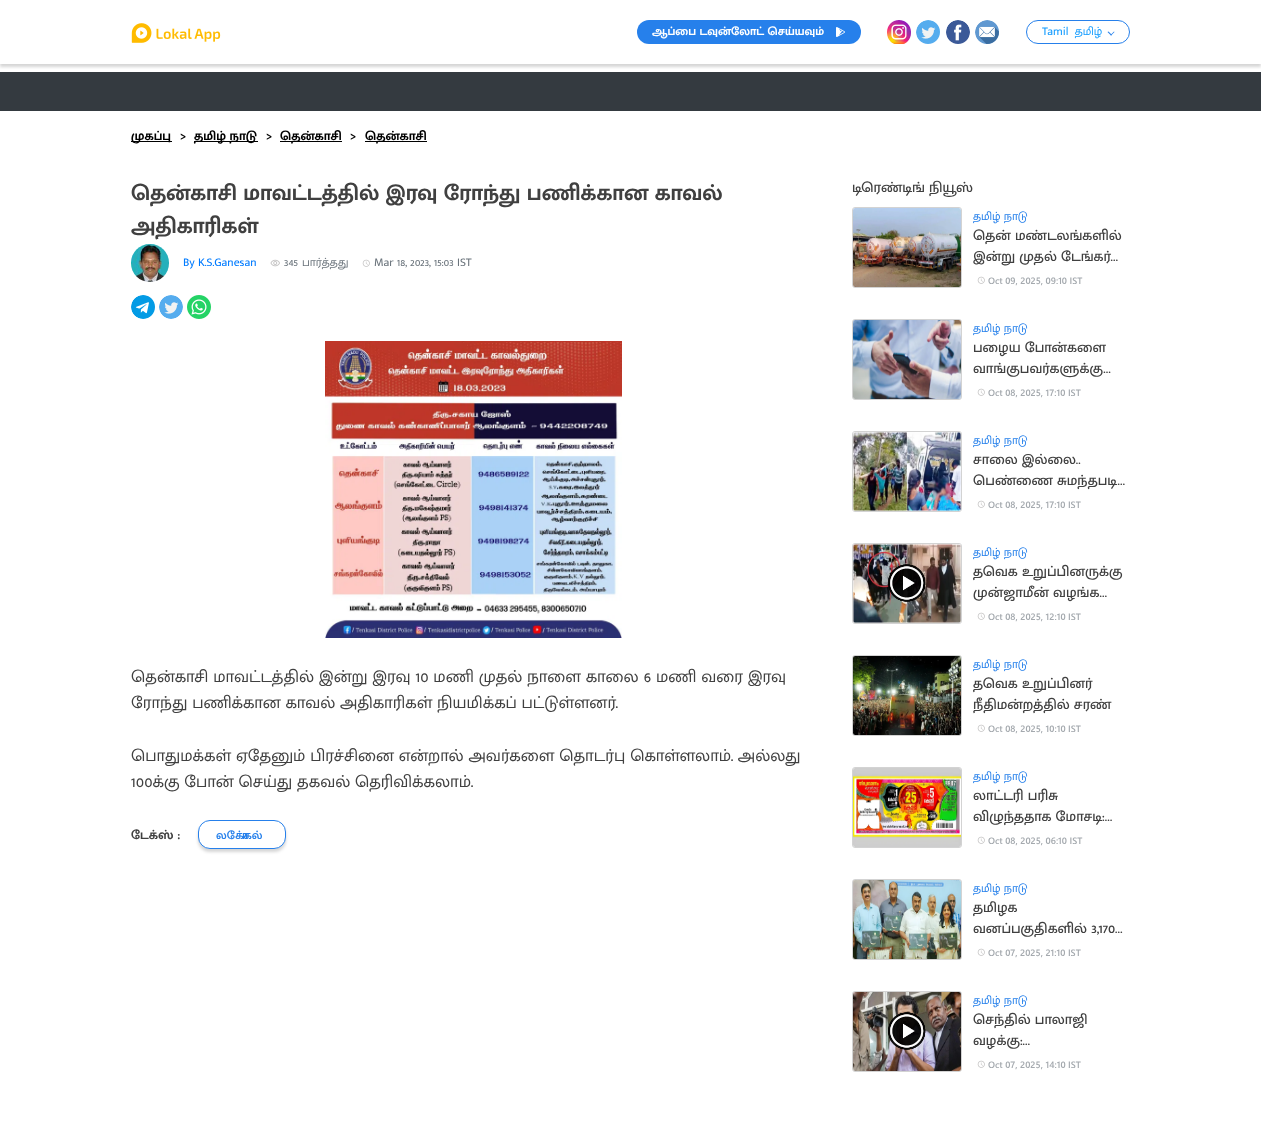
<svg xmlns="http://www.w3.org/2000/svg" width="1261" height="1126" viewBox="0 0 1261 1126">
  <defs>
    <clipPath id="clip1"><path d="M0 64h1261v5H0z"/></clipPath>
  </defs>
  <rect width="100%" height="100%" fill="#fff"/>
  <g clip-path="url(#clip1)">
    <path d="M0 3h1261v64H0z" fill="#00000029" filter="blur(1.5px)"/>
  </g>
  <image x="131" y="23" width="90" height="20" href="img/1.png"/>
  <rect x="637" y="20" width="224" height="24" rx="12" fill="#2680eb"/>
  <image x="836" y="27" width="9" height="10" href="img/2.png"/>
  <image x="887" y="20" width="24" height="24" href="img/3.png"/>
  <image x="916" y="20" width="24" height="24" href="img/4.png"/>
  <image x="946" y="20" width="24" height="24" href="img/5.png"/>
  <image x="975" y="20" width="24" height="24" href="img/6.png"/>
  <rect x="1026.5" y="20.5" width="103" height="23" rx="11.5" fill="none" stroke="#2680eb"/>
  <path d="M1114 31.5L1114.5 32L1111 35.5L1110.5 35Z" fill="#2680eb"/>
  <path d="M1108.5 31.5L1112 35L1111 35.5L1107.5 32Z" fill="#2680eb"/>
  <path d="M0 72h1261v39H0z" fill="#343a40"/>
  <path d="M131 141h41v1H131z" fill="#000"/>
  <path d="M194 141h64v1H194z" fill="#000"/>
  <path d="M280 141h62v1H280z" fill="#000"/>
  <path d="M365 141h62v1H365z" fill="#000"/>
  <image x="131" y="244" width="38" height="38" href="img/7.png"/>
  <image x="270" y="259" width="10" height="8" href="img/8.png"/>
  <image x="362" y="259" width="8" height="8" href="img/9.png"/>
  <image x="131" y="295" width="24" height="24" href="img/10.png"/>
  <image x="159" y="295" width="24" height="24" href="img/11.png"/>
  <image x="187" y="295" width="24" height="24" href="img/12.png"/>
  <image x="325" y="341" width="297" height="297" href="img/13.png"/>
  <rect x="198" y="823" width="88" height="29" rx="12" fill="#00000029" filter="blur(1.5px)"/>
  <rect x="198.5" y="820.5" width="87" height="28" rx="11.5" fill="#fff" stroke="#2680eb"/>
  <rect x="852.5" y="207.5" width="109" height="80" rx="2.5" fill="none" stroke="#d3d3d3"/>
  <image x="853" y="208" width="108" height="79" href="img/14.png"/>
  <image x="977" y="276" width="8" height="8" href="img/9.png"/>
  <rect x="852.5" y="319.5" width="109" height="80" rx="2.5" fill="none" stroke="#d3d3d3"/>
  <image x="853" y="320" width="108" height="79" href="img/15.png"/>
  <image x="977" y="388" width="8" height="8" href="img/9.png"/>
  <rect x="852.5" y="431.5" width="109" height="80" rx="2.5" fill="none" stroke="#d3d3d3"/>
  <image x="853" y="432" width="108" height="79" href="img/16.png"/>
  <image x="977" y="500" width="8" height="8" href="img/9.png"/>
  <rect x="852.5" y="543.5" width="109" height="80" rx="2.5" fill="none" stroke="#d3d3d3"/>
  <image x="853" y="544" width="108" height="79" href="img/17.png"/>
  <image x="888" y="564" width="38" height="38" href="img/18.png"/>
  <image x="888" y="564" width="38" height="38" href="img/19.png"/>
  <image x="977" y="612" width="8" height="8" href="img/9.png"/>
  <rect x="852.5" y="655.5" width="109" height="80" rx="2.5" fill="none" stroke="#d3d3d3"/>
  <image x="853" y="656" width="108" height="79" href="img/20.png"/>
  <image x="977" y="724" width="8" height="8" href="img/9.png"/>
  <rect x="852.5" y="767.5" width="109" height="80" rx="2.5" fill="none" stroke="#d3d3d3"/>
  <image x="853" y="768" width="108" height="79" href="img/21.png"/>
  <image x="977" y="836" width="8" height="8" href="img/9.png"/>
  <rect x="852.5" y="879.5" width="109" height="80" rx="2.5" fill="none" stroke="#d3d3d3"/>
  <image x="853" y="880" width="108" height="79" href="img/22.png"/>
  <image x="977" y="948" width="8" height="8" href="img/9.png"/>
  <rect x="852.5" y="991.5" width="109" height="80" rx="2.5" fill="none" stroke="#d3d3d3"/>
  <image x="853" y="992" width="108" height="79" href="img/23.png"/>
  <image x="888" y="1012" width="38" height="38" href="img/24.png"/>
  <image x="888" y="1012" width="38" height="38" href="img/25.png"/>
  <image x="977" y="1060" width="8" height="8" href="img/9.png"/>
  <text x="652" y="35" font-family="Mukta Malar" font-size="11.8" font-weight="bold" fill="#fff">ஆப்பை டவுன்லோட் செய்யவும்</text>
  <text x="1042" y="35" word-spacing="3" font-family="Mukta Malar" font-size="11.8" fill="#129bff">Tamil தமிழ்</text>
  <g font-family="Mukta Malar" font-size="13" font-weight="bold" fill="#000">
    <text x="131" y="140">முகப்பு</text>
    <text x="180" y="140">&gt;</text>
    <text x="194" y="140">தமிழ் நாடு</text>
    <text x="266" y="140">&gt;</text>
    <text x="280" y="140">தென்காசி</text>
    <text x="350" y="140">&gt;</text>
    <text x="365" y="140">தென்காசி</text>
  </g>
  <g font-family="Mukta Malar" font-size="22.3" font-weight="bold" fill="#404040">
    <text x="131" y="200">தென்காசி மாவட்டத்தில் இரவு ரோந்து பணிக்கான காவல்</text>
    <text x="131" y="233">அதிகாரிகள்</text>
  </g>
  <text x="183" y="266" font-family="Mukta Malar" font-size="11.8" fill="#007bff">By K.S.Ganesan</text>
  <g font-family="Mukta Malar" font-size="11.8" fill="#6c757d">
    <text x="284" y="266">345</text>
    <text x="302" y="266">பார்த்தது</text>
    <text x="374" y="266">Mar 18, 2023, 15:03 IST</text>
  </g>
  <g font-family="Mukta Malar" font-size="17.1" fill="#404040">
    <text x="131" y="682">தென்காசி மாவட்டத்தில் இன்று இரவு 10 மணி முதல் நாளை காலை 6 மணி வரை இரவு</text>
    <text x="131" y="708">ரோந்து பணிக்கான காவல் அதிகாரிகள் நியமிக்கப் பட்டுள்ளனர்.</text>
    <text x="131" y="761">பொதுமக்கள் ஏதேனும் பிரச்சினை என்றால் அவர்களை தொடர்பு கொள்ளலாம். அல்லது</text>
    <text x="131" y="787">100க்கு போன் செய்து தகவல் தெரிவிக்கலாம்.</text>
  </g>
  <text x="131" y="839" font-family="Mukta Malar" font-size="13" font-weight="bold" fill="#404040">டேக்ஸ் :</text>
  <text x="216" y="839" font-family="Mukta Malar" font-size="11.8" font-weight="600" fill="#2680eb">லோக்கல்</text>
  <text x="852" y="192" font-family="Mukta Malar" font-size="14.5" font-weight="500" fill="#404040">டிரெண்டிங் நியூஸ்</text>
  <text x="973" y="220" font-family="Mukta Malar" font-size="11.8" fill="#2680eb">தமிழ் நாடு</text>
  <g font-family="Mukta Malar" font-size="14.5" font-weight="500" fill="#404040">
    <text x="973" y="240">தென் மண்டலங்களில்</text>
    <text x="973" y="261">இன்று முதல் டேங்கர்…</text>
  </g>
  <text x="988" y="284" font-family="Segoe UI" font-size="9.25" font-weight="600" fill="#a4a9ae">Oct 09, 2025, 09:10 IST</text>
  <text x="973" y="332" font-family="Mukta Malar" font-size="11.8" fill="#2680eb">தமிழ் நாடு</text>
  <g font-family="Mukta Malar" font-size="14.5" font-weight="500" fill="#404040">
    <text x="973" y="352">பழைய போன்களை</text>
    <text x="973" y="373">வாங்குபவர்களுக்கு…</text>
  </g>
  <text x="988" y="396" font-family="Segoe UI" font-size="9.25" font-weight="600" fill="#a4a9ae">Oct 08, 2025, 17:10 IST</text>
  <text x="973" y="444" font-family="Mukta Malar" font-size="11.8" fill="#2680eb">தமிழ் நாடு</text>
  <g font-family="Mukta Malar" font-size="14.5" font-weight="500" fill="#404040">
    <text x="973" y="464">சாலை இல்லை..</text>
    <text x="973" y="485">பெண்ணை சுமந்தபடி…</text>
  </g>
  <text x="988" y="508" font-family="Segoe UI" font-size="9.25" font-weight="600" fill="#a4a9ae">Oct 08, 2025, 17:10 IST</text>
  <text x="973" y="556" font-family="Mukta Malar" font-size="11.8" fill="#2680eb">தமிழ் நாடு</text>
  <g font-family="Mukta Malar" font-size="14.5" font-weight="500" fill="#404040">
    <text x="973" y="576">தவெக உறுப்பினருக்கு</text>
    <text x="973" y="597">முன்ஜாமீன் வழங்க…</text>
  </g>
  <text x="988" y="620" font-family="Segoe UI" font-size="9.25" font-weight="600" fill="#a4a9ae">Oct 08, 2025, 12:10 IST</text>
  <text x="973" y="668" font-family="Mukta Malar" font-size="11.8" fill="#2680eb">தமிழ் நாடு</text>
  <g font-family="Mukta Malar" font-size="14.5" font-weight="500" fill="#404040">
    <text x="973" y="688">தவெக உறுப்பினர்</text>
    <text x="973" y="709">நீதிமன்றத்தில் சரண்</text>
  </g>
  <text x="988" y="732" font-family="Segoe UI" font-size="9.25" font-weight="600" fill="#a4a9ae">Oct 08, 2025, 10:10 IST</text>
  <text x="973" y="780" font-family="Mukta Malar" font-size="11.8" fill="#2680eb">தமிழ் நாடு</text>
  <g font-family="Mukta Malar" font-size="14.5" font-weight="500" fill="#404040">
    <text x="973" y="800">லாட்டரி பரிசு</text>
    <text x="973" y="821">விழுந்ததாக மோசடி:…</text>
  </g>
  <text x="988" y="844" font-family="Segoe UI" font-size="9.25" font-weight="600" fill="#a4a9ae">Oct 08, 2025, 06:10 IST</text>
  <text x="973" y="892" font-family="Mukta Malar" font-size="11.8" fill="#2680eb">தமிழ் நாடு</text>
  <g font-family="Mukta Malar" font-size="14.5" font-weight="500" fill="#404040">
    <text x="973" y="912">தமிழக</text>
    <text x="973" y="933">வனப்பகுதிகளில் 3,170…</text>
  </g>
  <text x="988" y="956" font-family="Segoe UI" font-size="9.25" font-weight="600" fill="#a4a9ae">Oct 07, 2025, 21:10 IST</text>
  <text x="973" y="1004" font-family="Mukta Malar" font-size="11.8" fill="#2680eb">தமிழ் நாடு</text>
  <g font-family="Mukta Malar" font-size="14.5" font-weight="500" fill="#404040">
    <text x="973" y="1024">செந்தில் பாலாஜி</text>
    <text x="973" y="1045">வழக்கு:…</text>
  </g>
  <text x="988" y="1068" font-family="Segoe UI" font-size="9.25" font-weight="600" fill="#a4a9ae">Oct 07, 2025, 14:10 IST</text>
</svg>
